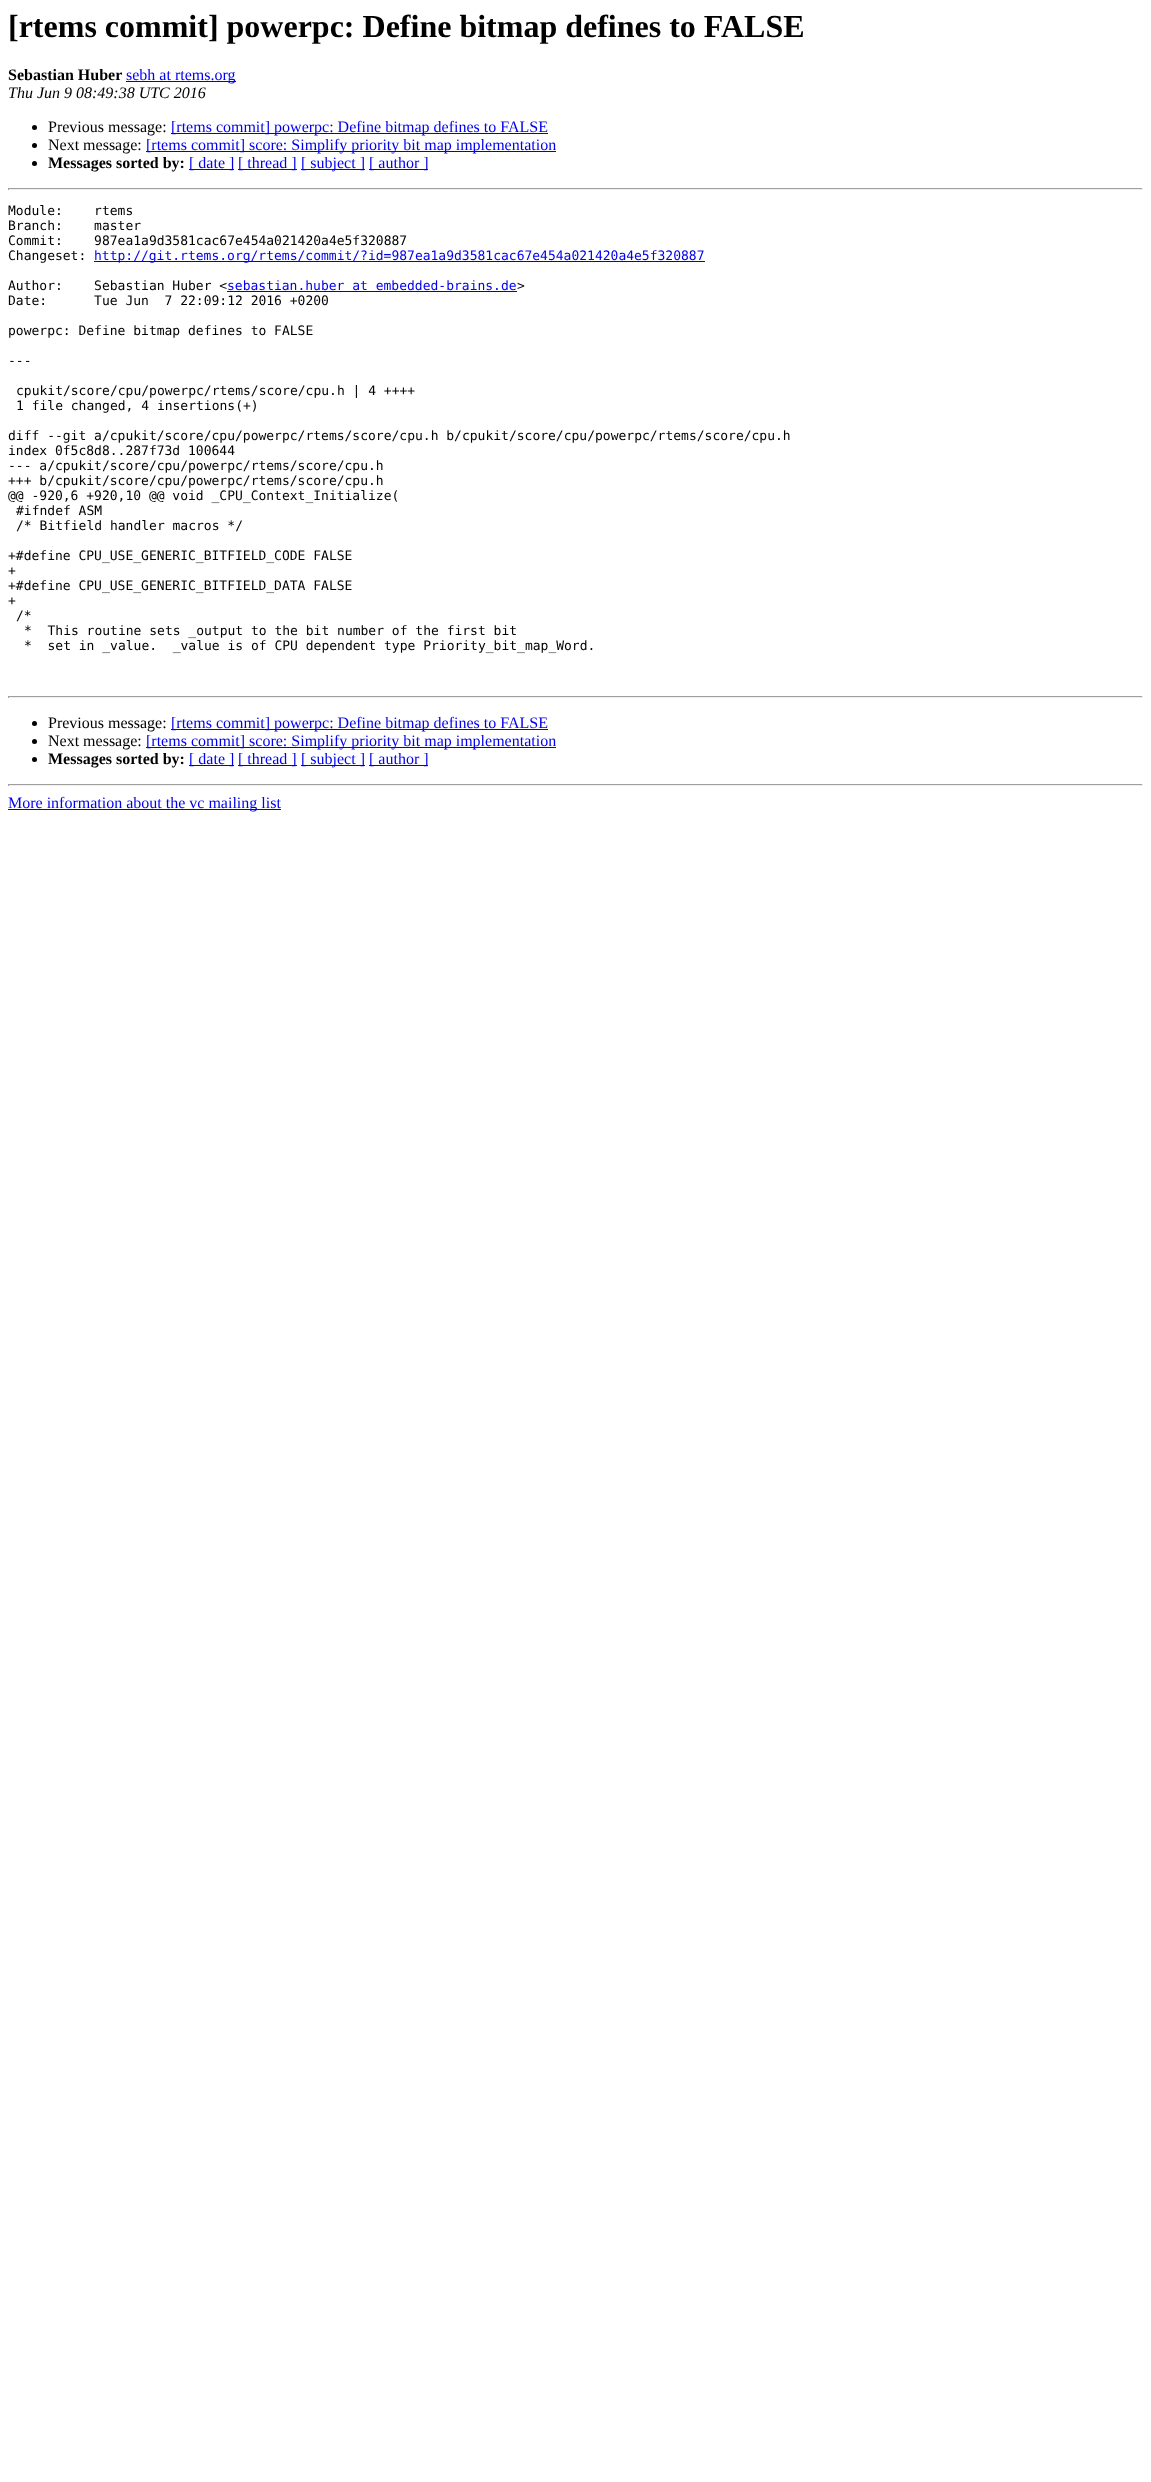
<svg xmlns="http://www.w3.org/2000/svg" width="1151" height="2482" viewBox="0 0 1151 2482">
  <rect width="100%" height="100%" fill="#fff"/>
  <path d="M126 81h110v1H126z" fill="#00e"/>
  <circle cx="34.5" cy="127.5" r="2.5" fill="#000"/>
  <path d="M171 133h377v1H171z" fill="#00e"/>
  <circle cx="34.5" cy="145.5" r="2.5" fill="#000"/>
  <path d="M146 151h410v1H146z" fill="#00e"/>
  <circle cx="34.5" cy="163.5" r="2.5" fill="#000"/>
  <path d="M189 169h45v1H189z" fill="#00e"/>
  <path d="M238 169h59v1H238z" fill="#00e"/>
  <path d="M301 169h64v1H301z" fill="#00e"/>
  <path d="M369 169h59v1H369z" fill="#00e"/>
  <path d="M8 188h1135v1H8z" fill="#9f9f9f"/>
  <path d="M1142 188h1v2H1142z" fill="#eee"/>
  <path d="M8 189h1135v1H8z" fill="#eee"/>
  <path d="M8 188h1v2H8z" fill="#9f9f9f"/>
  <path d="M94 261h611v1H94z" fill="#00e"/>
  <path d="M227 291h290v1H227z" fill="#00e"/>
  <path d="M8 696h1135v1H8z" fill="#9f9f9f"/>
  <path d="M1142 696h1v2H1142z" fill="#eee"/>
  <path d="M8 697h1135v1H8z" fill="#eee"/>
  <path d="M8 696h1v2H8z" fill="#9f9f9f"/>
  <circle cx="34.5" cy="723.5" r="2.5" fill="#000"/>
  <path d="M171 729h377v1H171z" fill="#00e"/>
  <circle cx="34.5" cy="741.5" r="2.5" fill="#000"/>
  <path d="M146 747h410v1H146z" fill="#00e"/>
  <circle cx="34.5" cy="759.5" r="2.5" fill="#000"/>
  <path d="M189 765h45v1H189z" fill="#00e"/>
  <path d="M238 765h59v1H238z" fill="#00e"/>
  <path d="M301 765h64v1H301z" fill="#00e"/>
  <path d="M369 765h59v1H369z" fill="#00e"/>
  <path d="M8 784h1135v1H8z" fill="#9f9f9f"/>
  <path d="M1142 784h1v2H1142z" fill="#eee"/>
  <path d="M8 785h1135v1H8z" fill="#eee"/>
  <path d="M8 784h1v2H8z" fill="#9f9f9f"/>
  <path d="M8 809h273v1H8z" fill="#00e"/>
  <text x="8" y="37" font-family="Liberation Serif" font-size="32" font-weight="bold" fill="#000">[rtems commit] powerpc: Define bitmap defines to FALSE</text>
  <text x="8" y="80" font-family="Liberation Serif" font-size="16" font-weight="bold" fill="#000">Sebastian Huber</text>
  <text x="126" y="80" font-family="Liberation Serif" font-size="16" fill="#00e">sebh at rtems.org</text>
  <text x="8" y="98" font-family="Liberation Serif" font-size="16" font-style="italic" fill="#000">Thu Jun 9 08:49:38 UTC 2016</text>
  <text x="48" y="132" font-family="Liberation Serif" font-size="16" fill="#000">Previous message:</text>
  <text x="171" y="132" font-family="Liberation Serif" font-size="16" fill="#00e">[rtems commit] powerpc: Define bitmap defines to FALSE</text>
  <text x="48" y="150" font-family="Liberation Serif" font-size="16" fill="#000">Next message:</text>
  <text x="146" y="150" font-family="Liberation Serif" font-size="16" fill="#00e">[rtems commit] score: Simplify priority bit map implementation</text>
  <text x="48" y="168" font-family="Liberation Serif" font-size="16" font-weight="bold" fill="#000">Messages sorted by:</text>
  <g font-family="Liberation Serif" font-size="16" fill="#00e">
    <text x="189" y="168">[ date ]</text>
    <text x="238" y="168">[ thread ]</text>
    <text x="301" y="168">[ subject ]</text>
    <text x="369" y="168">[ author ]</text>
  </g>
  <g font-family="DejaVu Sans Mono" font-size="13" fill="#000">
    <text x="8" y="215" xml:space="preserve">Module:    rtems</text>
    <text x="8" y="230" xml:space="preserve">Branch:    master</text>
    <text x="8" y="245" xml:space="preserve">Commit:    987ea1a9d3581cac67e454a021420a4e5f320887</text>
    <text x="8" y="260">Changeset:</text>
  </g>
  <text x="94" y="260" font-family="DejaVu Sans Mono" font-size="13" fill="#00e">http://git.rtems.org/rtems/commit/?id=987ea1a9d3581cac67e454a021420a4e5f320887</text>
  <text x="8" y="290" font-family="DejaVu Sans Mono" font-size="13" fill="#000" xml:space="preserve">Author:    Sebastian Huber &lt;</text>
  <text x="227" y="290" font-family="DejaVu Sans Mono" font-size="13" fill="#00e">sebastian.huber at embedded-brains.de</text>
  <g font-family="DejaVu Sans Mono" font-size="13" fill="#000">
    <text x="517" y="290">&gt;</text>
    <text x="8" y="305" xml:space="preserve">Date:      Tue Jun  7 22:09:12 2016 +0200</text>
    <text x="8" y="335">powerpc: Define bitmap defines to FALSE</text>
    <text x="8" y="365">---</text>
    <text x="16" y="395">cpukit/score/cpu/powerpc/rtems/score/cpu.h | 4 ++++</text>
    <text x="16" y="410">1 file changed, 4 insertions(+)</text>
    <text x="8" y="440">diff --git a/cpukit/score/cpu/powerpc/rtems/score/cpu.h b/cpukit/score/cpu/powerpc/rtems/score/cpu.h</text>
    <text x="8" y="455">index 0f5c8d8..287f73d 100644</text>
    <text x="8" y="470">--- a/cpukit/score/cpu/powerpc/rtems/score/cpu.h</text>
    <text x="8" y="485">+++ b/cpukit/score/cpu/powerpc/rtems/score/cpu.h</text>
    <text x="8" y="500">@@ -920,6 +920,10 @@ void _CPU_Context_Initialize(</text>
    <text x="16" y="515">#ifndef ASM</text>
    <text x="16" y="530">/* Bitfield handler macros */</text>
    <text x="8" y="560">+#define CPU_USE_GENERIC_BITFIELD_CODE FALSE</text>
    <text x="8" y="575">+</text>
    <text x="8" y="590">+#define CPU_USE_GENERIC_BITFIELD_DATA FALSE</text>
    <text x="8" y="605">+</text>
    <text x="16" y="620">/*</text>
    <text x="24" y="635" xml:space="preserve">*  This routine sets _output to the bit number of the first bit</text>
    <text x="24" y="650" xml:space="preserve">*  set in _value.  _value is of CPU dependent type Priority_bit_map_Word.</text>
  </g>
  <text x="48" y="728" font-family="Liberation Serif" font-size="16" fill="#000">Previous message:</text>
  <text x="171" y="728" font-family="Liberation Serif" font-size="16" fill="#00e">[rtems commit] powerpc: Define bitmap defines to FALSE</text>
  <text x="48" y="746" font-family="Liberation Serif" font-size="16" fill="#000">Next message:</text>
  <text x="146" y="746" font-family="Liberation Serif" font-size="16" fill="#00e">[rtems commit] score: Simplify priority bit map implementation</text>
  <text x="48" y="764" font-family="Liberation Serif" font-size="16" font-weight="bold" fill="#000">Messages sorted by:</text>
  <g font-family="Liberation Serif" font-size="16" fill="#00e">
    <text x="189" y="764">[ date ]</text>
    <text x="238" y="764">[ thread ]</text>
    <text x="301" y="764">[ subject ]</text>
    <text x="369" y="764">[ author ]</text>
    <text x="8" y="808">More information about the vc mailing list</text>
  </g>
</svg>
